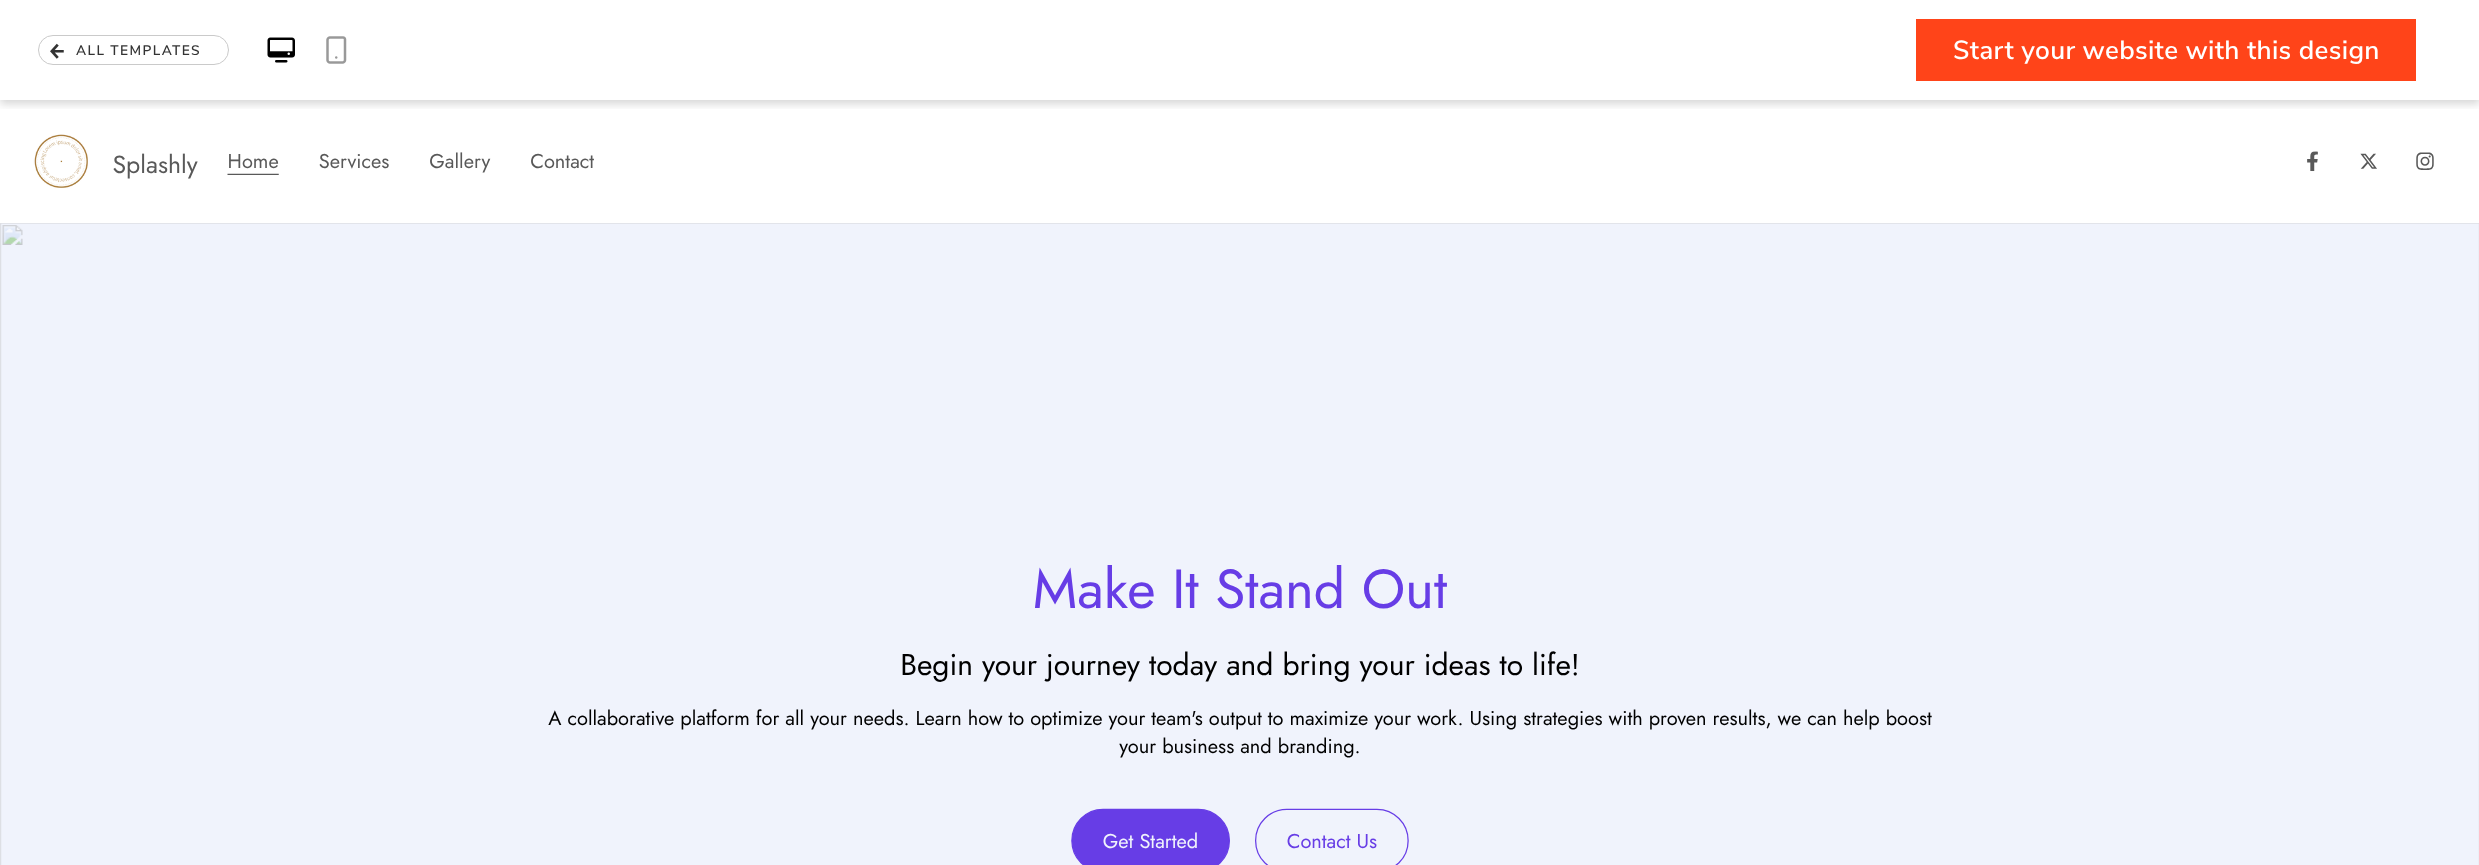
<svg xmlns="http://www.w3.org/2000/svg" width="2479" height="865" viewBox="0 0 2479 865">
  <defs>
    <clipPath id="clip1"><path d="M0 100h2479v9H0z"/></clipPath>
  </defs>
  <rect width="100%" height="100%" fill="#fff"/>
  <g clip-path="url(#clip1)">
    <path d="M0 4h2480v100H0z" fill="#00000029" filter="blur(4px)"/>
  </g>
  <rect x="38.5" y="35.5" width="190" height="29" rx="14.5" fill="none" stroke="#cacaca"/>
  <image x="50" y="43" width="14" height="16" href="img/1.png"/>
  <image x="267" y="37" width="28" height="26" href="img/2.png"/>
  <image x="326" y="36" width="21" height="28" href="img/3.png"/>
  <path d="M1916 19h500v62H1916z" fill="#ff4419"/>
  <image x="0" y="134" width="2479" height="731" href="img/4.png"/>
  <text x="76" y="55" font-family="Nunito Sans" font-size="13.75" font-weight="600" letter-spacing="1.4" fill="#333">ALL TEMPLATES</text>
  <text x="1953" y="59" font-family="Nunito Sans" font-size="26.25" font-weight="600" letter-spacing="0.3" fill="#fff">Start your website with this design</text>
</svg>
